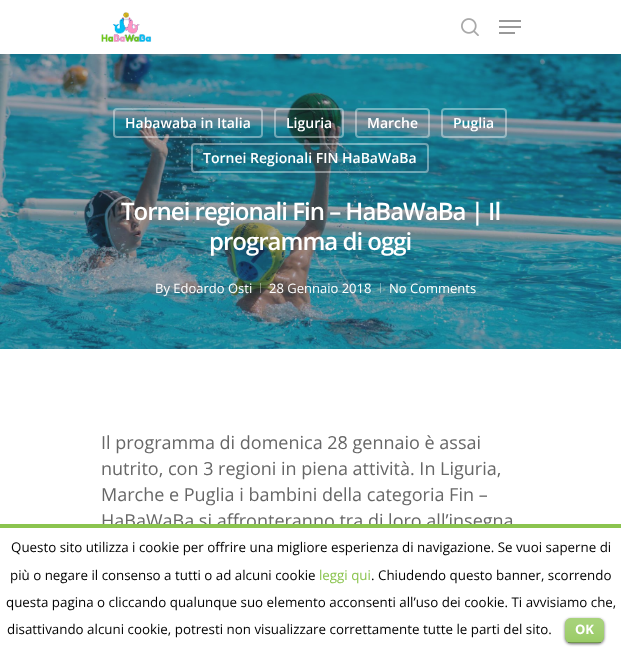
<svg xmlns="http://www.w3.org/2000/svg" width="621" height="648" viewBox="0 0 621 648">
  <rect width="100%" height="100%" fill="#fff"/>
  <image x="101" y="12" width="51" height="30" href="img/1.png"/>
  <image x="461" y="18" width="18" height="18" href="img/2.png"/>
  <path d="M499 20h22v2H499z" fill="#999"/>
  <path d="M499 32h16v2H499z" fill="#999"/>
  <path d="M499 26h22v2H499z" fill="#999"/>
  <image x="0" y="54" width="621" height="295" href="img/3.png"/>
  <rect x="114" y="109" width="148" height="28" rx="3" fill="none" stroke="#ffffff66" stroke-width="2"/>
  <rect x="275" y="109" width="68" height="28" rx="3" fill="none" stroke="#ffffff66" stroke-width="2"/>
  <rect x="356" y="109" width="73" height="28" rx="3" fill="none" stroke="#ffffff66" stroke-width="2"/>
  <rect x="442" y="109" width="64" height="28" rx="3" fill="none" stroke="#ffffff66" stroke-width="2"/>
  <rect x="192" y="144" width="236" height="28" rx="3" fill="none" stroke="#ffffff66" stroke-width="2"/>
  <path d="M260 283h1v10H260z" fill="#ffffff66"/>
  <path d="M380 283h1v10H380z" fill="#ffffff66"/>
  <rect x="565" y="619" width="39" height="25" rx="6" fill="#00000099" filter="blur(1.5px)"/>
  <rect x="565" y="618" width="39" height="25" rx="6" fill="#8bc44f"/>
  <image x="565" y="618" width="39" height="25" href="img/4.png"/>
  <path d="M568 642h33v1H568z" fill="#00000040"/>
  <g font-family="Open Sans" font-size="14" font-weight="600" fill="#fff">
    <text x="125" y="128">Habawaba in Italia</text>
    <text x="286" y="128">Liguria</text>
    <text x="367" y="128">Marche</text>
    <text x="453" y="128">Puglia</text>
    <text x="203" y="163">Tornei Regionali FIN HaBaWaBa</text>
  </g>
  <g font-family="Open Sans" font-size="24" font-weight="600" letter-spacing="-1" fill="#fff">
    <text x="121" y="220">Tornei regionali Fin – HaBaWaBa | Il</text>
    <text x="209" y="250">programma di oggi</text>
  </g>
  <g font-family="Open Sans" font-size="13" fill="#fff">
    <text x="155" y="293">By Edoardo Osti</text>
    <text x="269" y="293">28 Gennaio 2018</text>
    <text x="389" y="293">No Comments</text>
  </g>
  <g font-family="Open Sans" font-size="18" fill="#676767">
    <text x="101" y="449">Il programma di domenica 28 gennaio è assai</text>
    <text x="101" y="475">nutrito, con 3 regioni in piena attività. In Liguria,</text>
    <text x="101" y="501">Marche e Puglia i bambini della categoria Fin –</text>
    <text x="101" y="527">HaBaWaBa si affronteranno tra di loro all’insegna</text>
  </g>
  <path d="M482 528h10v4H482z" fill="#fff"/>
  <path d="M0 524h621v4H0z" fill="#8bc44f"/>
  <g font-family="Open Sans" font-size="13.35" fill="#000">
    <text x="11" y="552">Questo sito utilizza i cookie per offrire una migliore esperienza di navigazione. Se vuoi saperne di</text>
    <text x="10" y="580">più o negare il consenso a tutti o ad alcuni cookie</text>
  </g>
  <text x="319" y="580" font-family="Open Sans" font-size="13.35" fill="#8bc44f">leggi qui</text>
  <g font-family="Open Sans" font-size="13.35" fill="#000">
    <text x="371" y="580">. Chiudendo questo banner, scorrendo</text>
    <text x="6" y="607">questa pagina o cliccando qualunque suo elemento acconsenti all’uso dei cookie. Ti avvisiamo che,</text>
    <text x="7" y="634">disattivando alcuni cookie, potresti non visualizzare correttamente tutte le parti del sito.</text>
  </g>
  <text x="575" y="634" font-family="Open Sans" font-size="13" font-weight="bold" fill="#fff">OK</text>
</svg>
